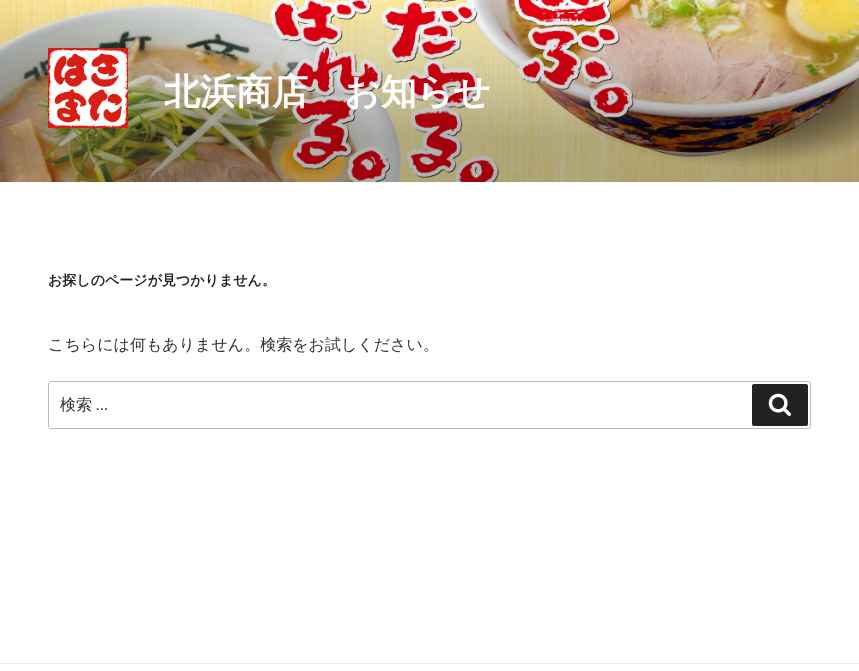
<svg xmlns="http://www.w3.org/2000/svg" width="859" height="671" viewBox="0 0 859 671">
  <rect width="100%" height="100%" fill="#fff"/>
  <path d="M0 182h859v1H0z" fill="#fafafa"/>
  <image x="0" y="0" width="859" height="182" href="img/1.png"/>
  <image x="48" y="48" width="80" height="80" href="img/2.png"/>
  <rect x="48.5" y="381.5" width="762" height="47" rx="2.5" fill="none" stroke="#bbb"/>
  <rect x="752" y="384" width="56" height="42" rx="2" fill="#222"/>
  <image x="768" y="393" width="23" height="23" href="img/3.png"/>
  <path d="M0 663h859v1H0z" fill="#eee"/>
  <text x="164" y="104" font-family="WenQuanYi Zen Hei" font-size="36" font-weight="bold" fill="#fff">北浜商店　お知らせ</text>
  <text x="48" y="285" font-family="WenQuanYi Zen Hei" font-size="14" font-weight="bold" fill="#222">お探しのページが見つかりません。</text>
  <g font-family="WenQuanYi Zen Hei" font-size="16" font-weight="500" fill="#333">
    <text x="48" y="350">こちらには何もありません。検索をお試しください。</text>
    <text x="60" y="410">検索</text>
  </g>
  <text x="96" y="410" font-family="Libre Franklin" font-size="16" fill="#333">…</text>
</svg>
